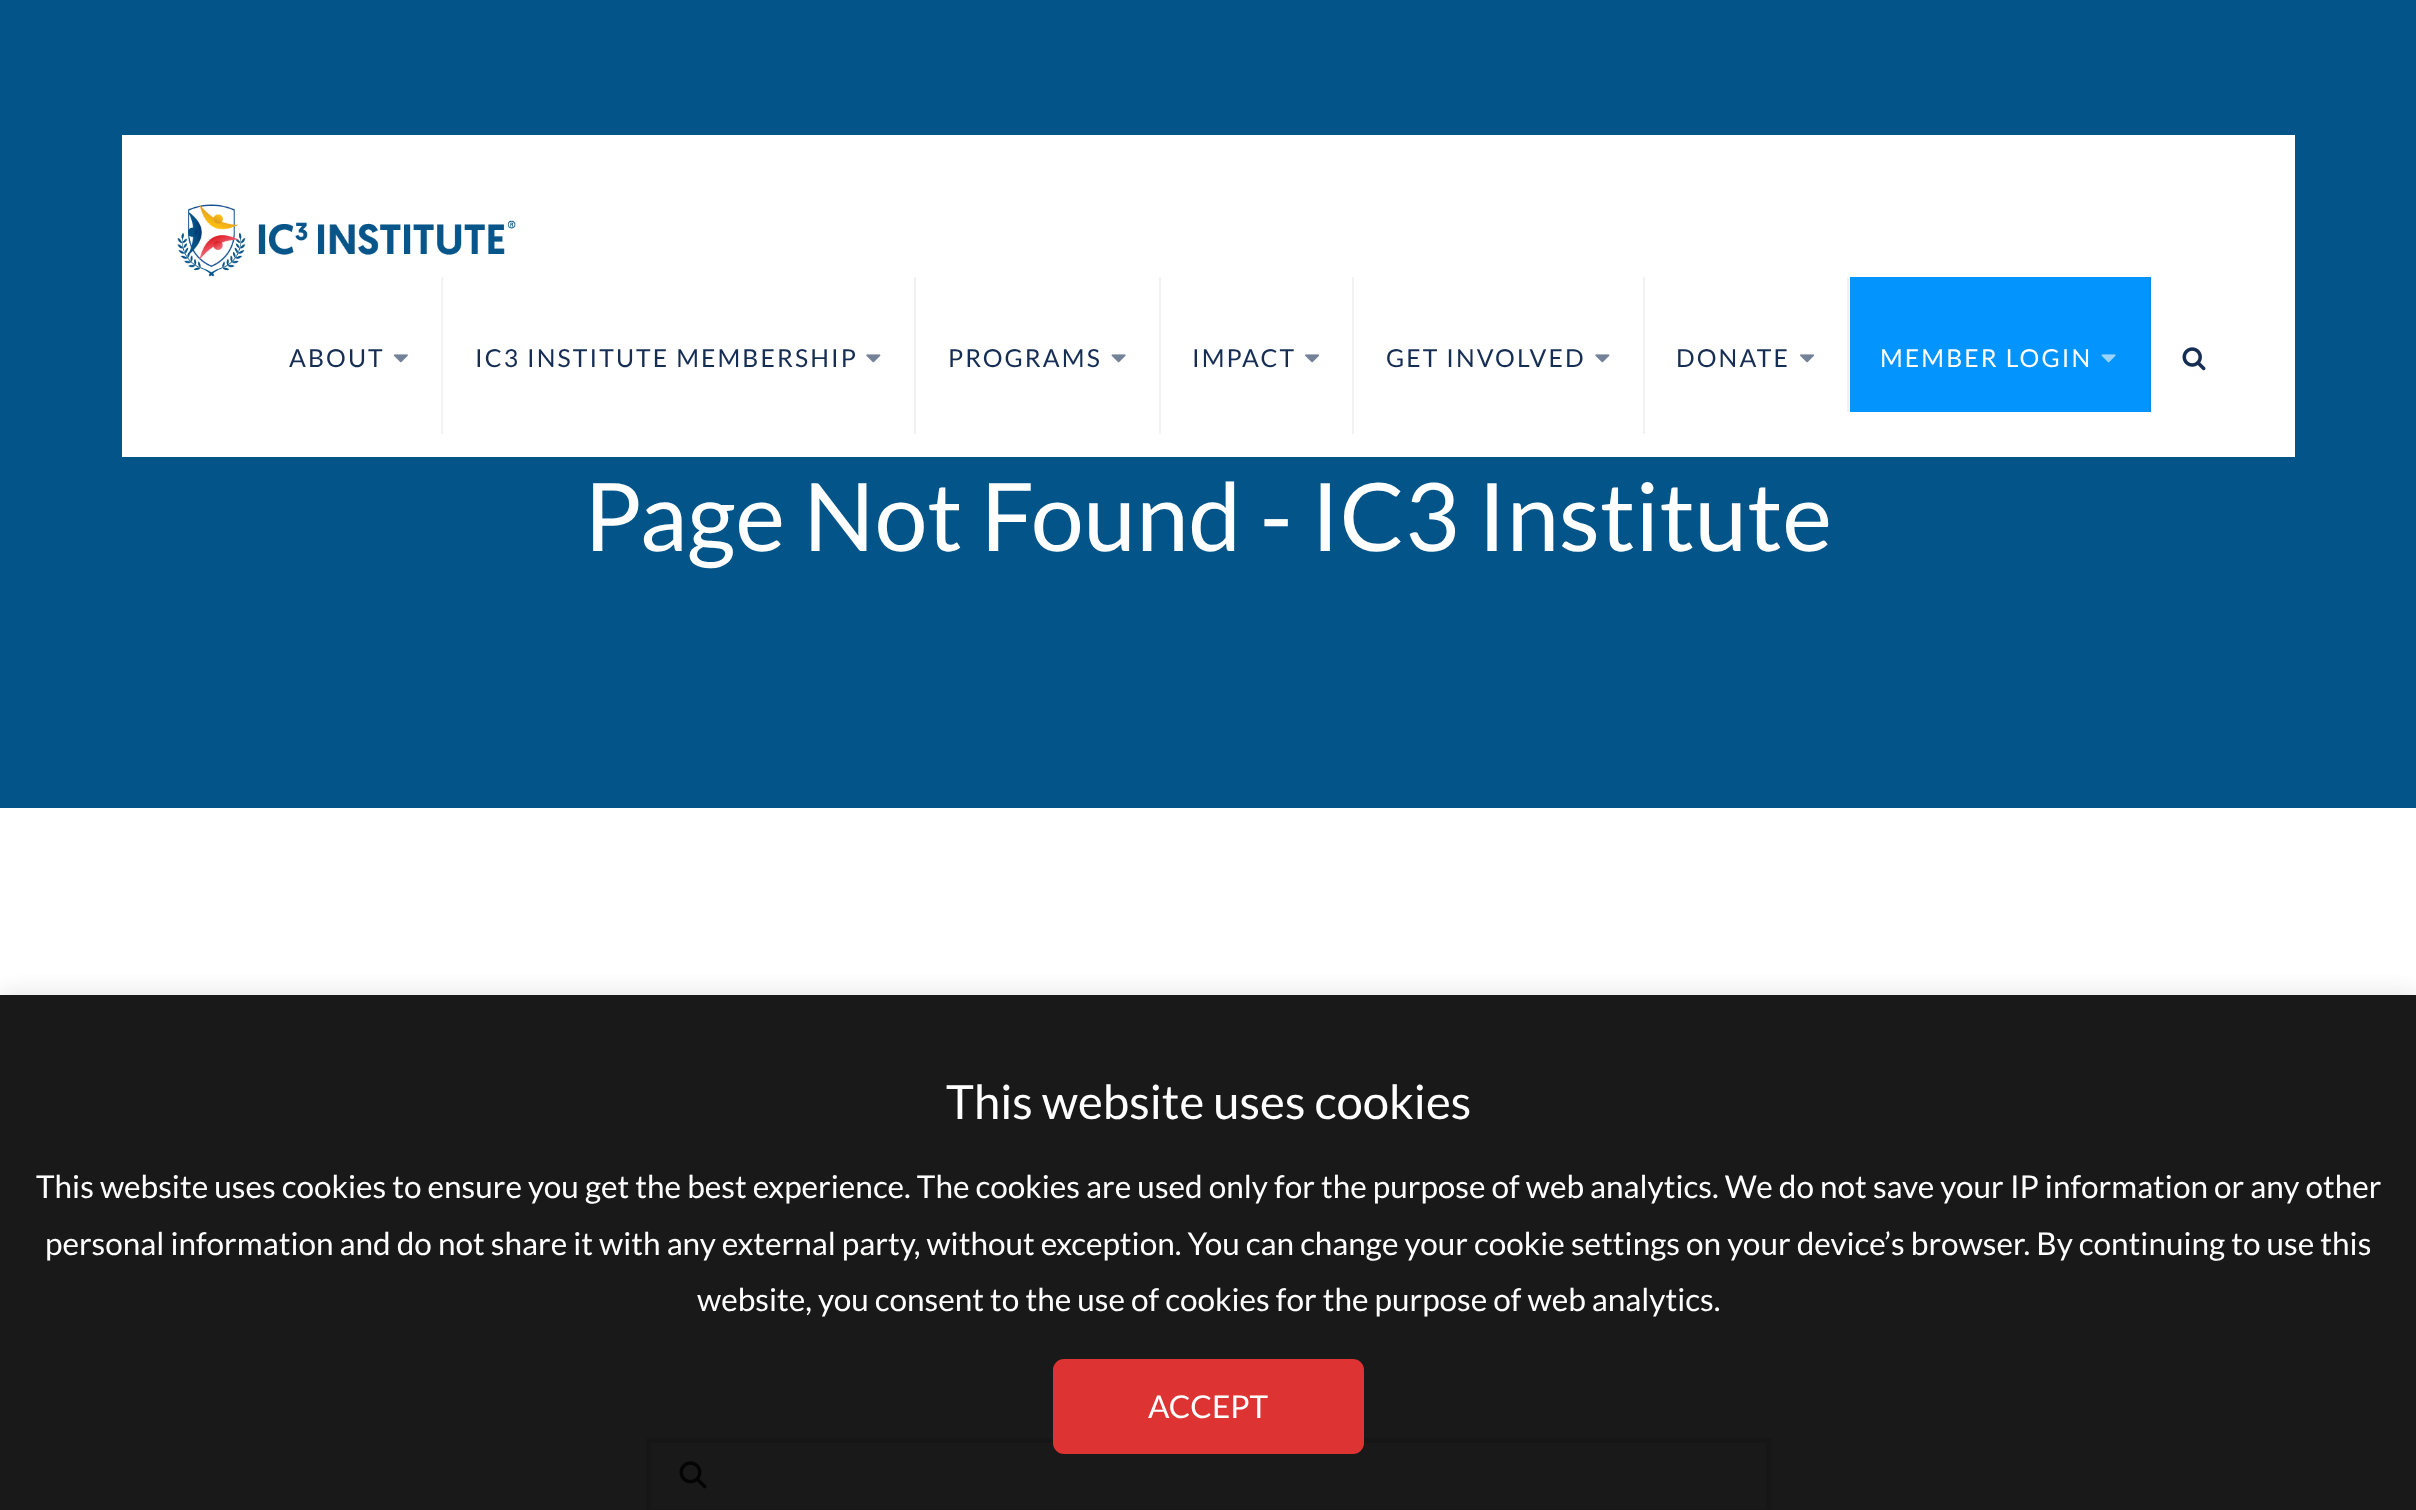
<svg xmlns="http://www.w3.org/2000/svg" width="2416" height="1510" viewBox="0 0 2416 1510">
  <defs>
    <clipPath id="clip1"><path d="M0 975h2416v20H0z"/></clipPath>
  </defs>
  <rect width="100%" height="100%" fill="#fff"/>
  <path d="M0 995h2416v515H0z" fill="#191919"/>
  <path d="M0 0h2416v808H0z" fill="#035489"/>
  <path d="M122 135h2173v322H122z" fill="#fff"/>
  <image x="177" y="204" width="339" height="73" href="img/1.png"/>
  <path d="M441 277h2v157H441z" fill="#f2f2f2"/>
  <image x="393" y="354" width="15" height="9" href="img/2.png"/>
  <path d="M914 277h2v157H914z" fill="#f2f2f2"/>
  <image x="866" y="354" width="15" height="9" href="img/3.png"/>
  <path d="M1159 277h2v157H1159z" fill="#f2f2f2"/>
  <image x="1111" y="354" width="15" height="9" href="img/4.png"/>
  <path d="M1352 277h2v157H1352z" fill="#f2f2f2"/>
  <image x="1305" y="354" width="15" height="9" href="img/5.png"/>
  <path d="M1643 277h2v157H1643z" fill="#f2f2f2"/>
  <image x="1595" y="354" width="15" height="9" href="img/3.png"/>
  <path d="M1847 277h2v135H1847z" fill="#f2f2f2"/>
  <image x="1800" y="354" width="15" height="9" href="img/5.png"/>
  <path d="M1850 277h299v135H1850z" fill="#0394fd"/>
  <path d="M2149 277h2v135H2149z" fill="#038df0"/>
  <image x="2101" y="354" width="15" height="9" href="img/6.png"/>
  <image x="2182" y="347" width="24" height="24" href="img/7.png"/>
  <path d="M648.5 1440.5h1120v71H648.5z" fill="none" stroke="#161616" stroke-width="5"/>
  <image x="679" y="1461" width="28" height="28" href="img/8.png"/>
  <g clip-path="url(#clip1)">
    <path d="M0 992h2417v518H0z" fill="#acabab4d" filter="blur(11px)"/>
  </g>
  <rect x="1053" y="1359" width="311" height="95" rx="11" fill="#d33"/>
  <g font-family="Lato" font-size="24.75" letter-spacing="2.1" fill="#172e54">
    <text x="289" y="367">ABOUT</text>
    <text x="475" y="367">IC3 INSTITUTE MEMBERSHIP</text>
    <text x="948" y="367">PROGRAMS</text>
    <text x="1192" y="367">IMPACT</text>
    <text x="1386" y="367">GET INVOLVED</text>
    <text x="1676" y="367">DONATE</text>
  </g>
  <text x="1880" y="367" font-family="Lato" font-size="24.75" letter-spacing="2.1" fill="#fff">MEMBER LOGIN</text>
  <text x="584" y="551" font-family="Lato" font-size="94.5" fill="#fff">Page Not Found - IC3 Institute</text>
  <text x="946" y="1119" font-family="Lato" font-size="47.25" fill="#fff">This website uses cookies</text>
  <g font-family="Lato" font-size="31.5" fill="#fff">
    <text x="36" y="1198">This website uses cookies to ensure you get the best experience. The cookies are used only for the purpose of web analytics. We do not save your IP information or any other</text>
    <text x="45" y="1255">personal information and do not share it with any external party, without exception. You can change your cookie settings on your device’s browser. By continuing to use this</text>
    <text x="697" y="1311">website, you consent to the use of cookies for the purpose of web analytics.</text>
    <text x="1148" y="1418">ACCEPT</text>
  </g>
</svg>
